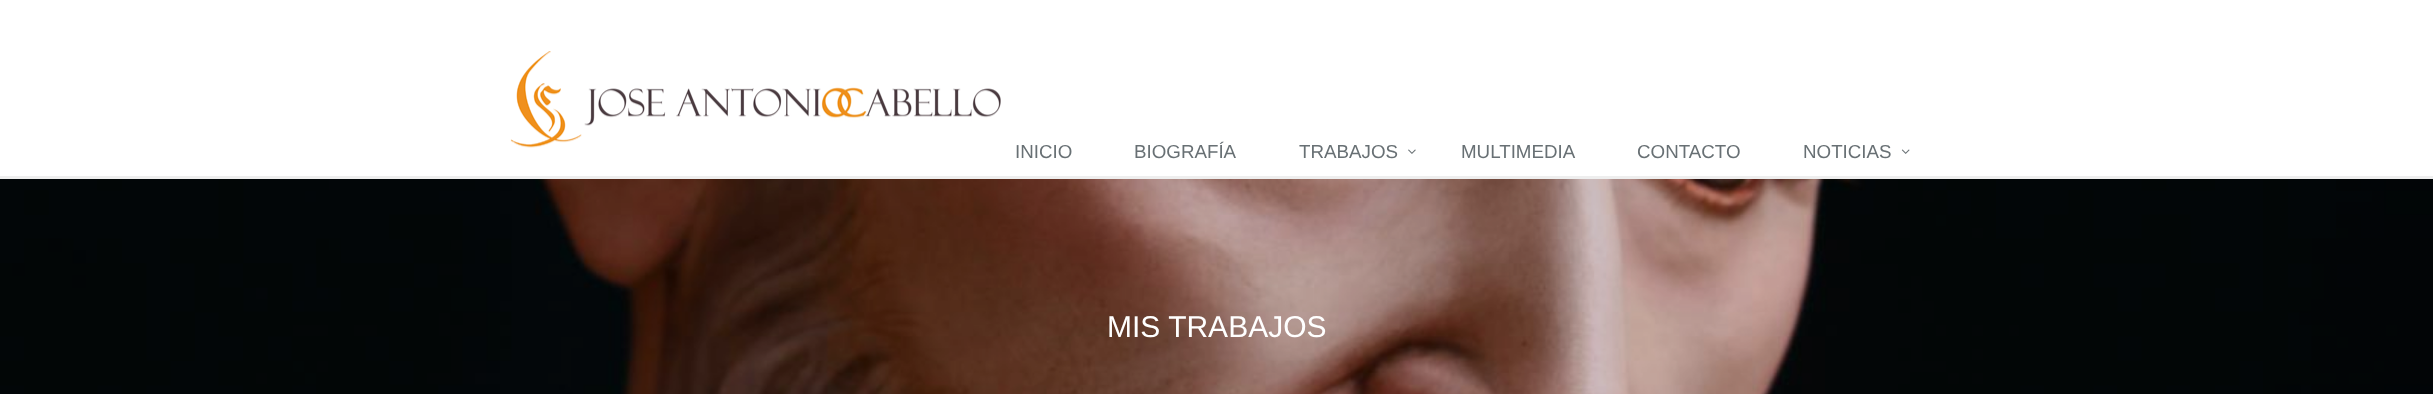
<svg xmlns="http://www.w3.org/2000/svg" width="2433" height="394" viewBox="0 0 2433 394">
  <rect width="100%" height="100%" fill="#fff"/>
  <path d="M0 176h2433v3H0z" fill="#eee"/>
  <image x="510" y="51" width="491" height="97" href="img/1.png"/>
  <image x="1408" y="149" width="8" height="5" href="img/2.png"/>
  <image x="1901" y="149" width="9" height="5" href="img/3.png"/>
  <image x="0" y="179" width="2433" height="215" href="img/4.png"/>
  <g font-family="Liberation Sans" font-size="18.75" fill="#687074">
    <text x="1015" y="158">INICIO</text>
    <text x="1134" y="158">BIOGRAFÍA</text>
    <text x="1299" y="158">TRABAJOS</text>
    <text x="1461" y="158">MULTIMEDIA</text>
    <text x="1637" y="158">CONTACTO</text>
    <text x="1803" y="158">NOTICIAS</text>
  </g>
  <text x="1107" y="337" font-family="Liberation Sans" font-size="30" fill="#fff">MIS TRABAJOS</text>
</svg>
